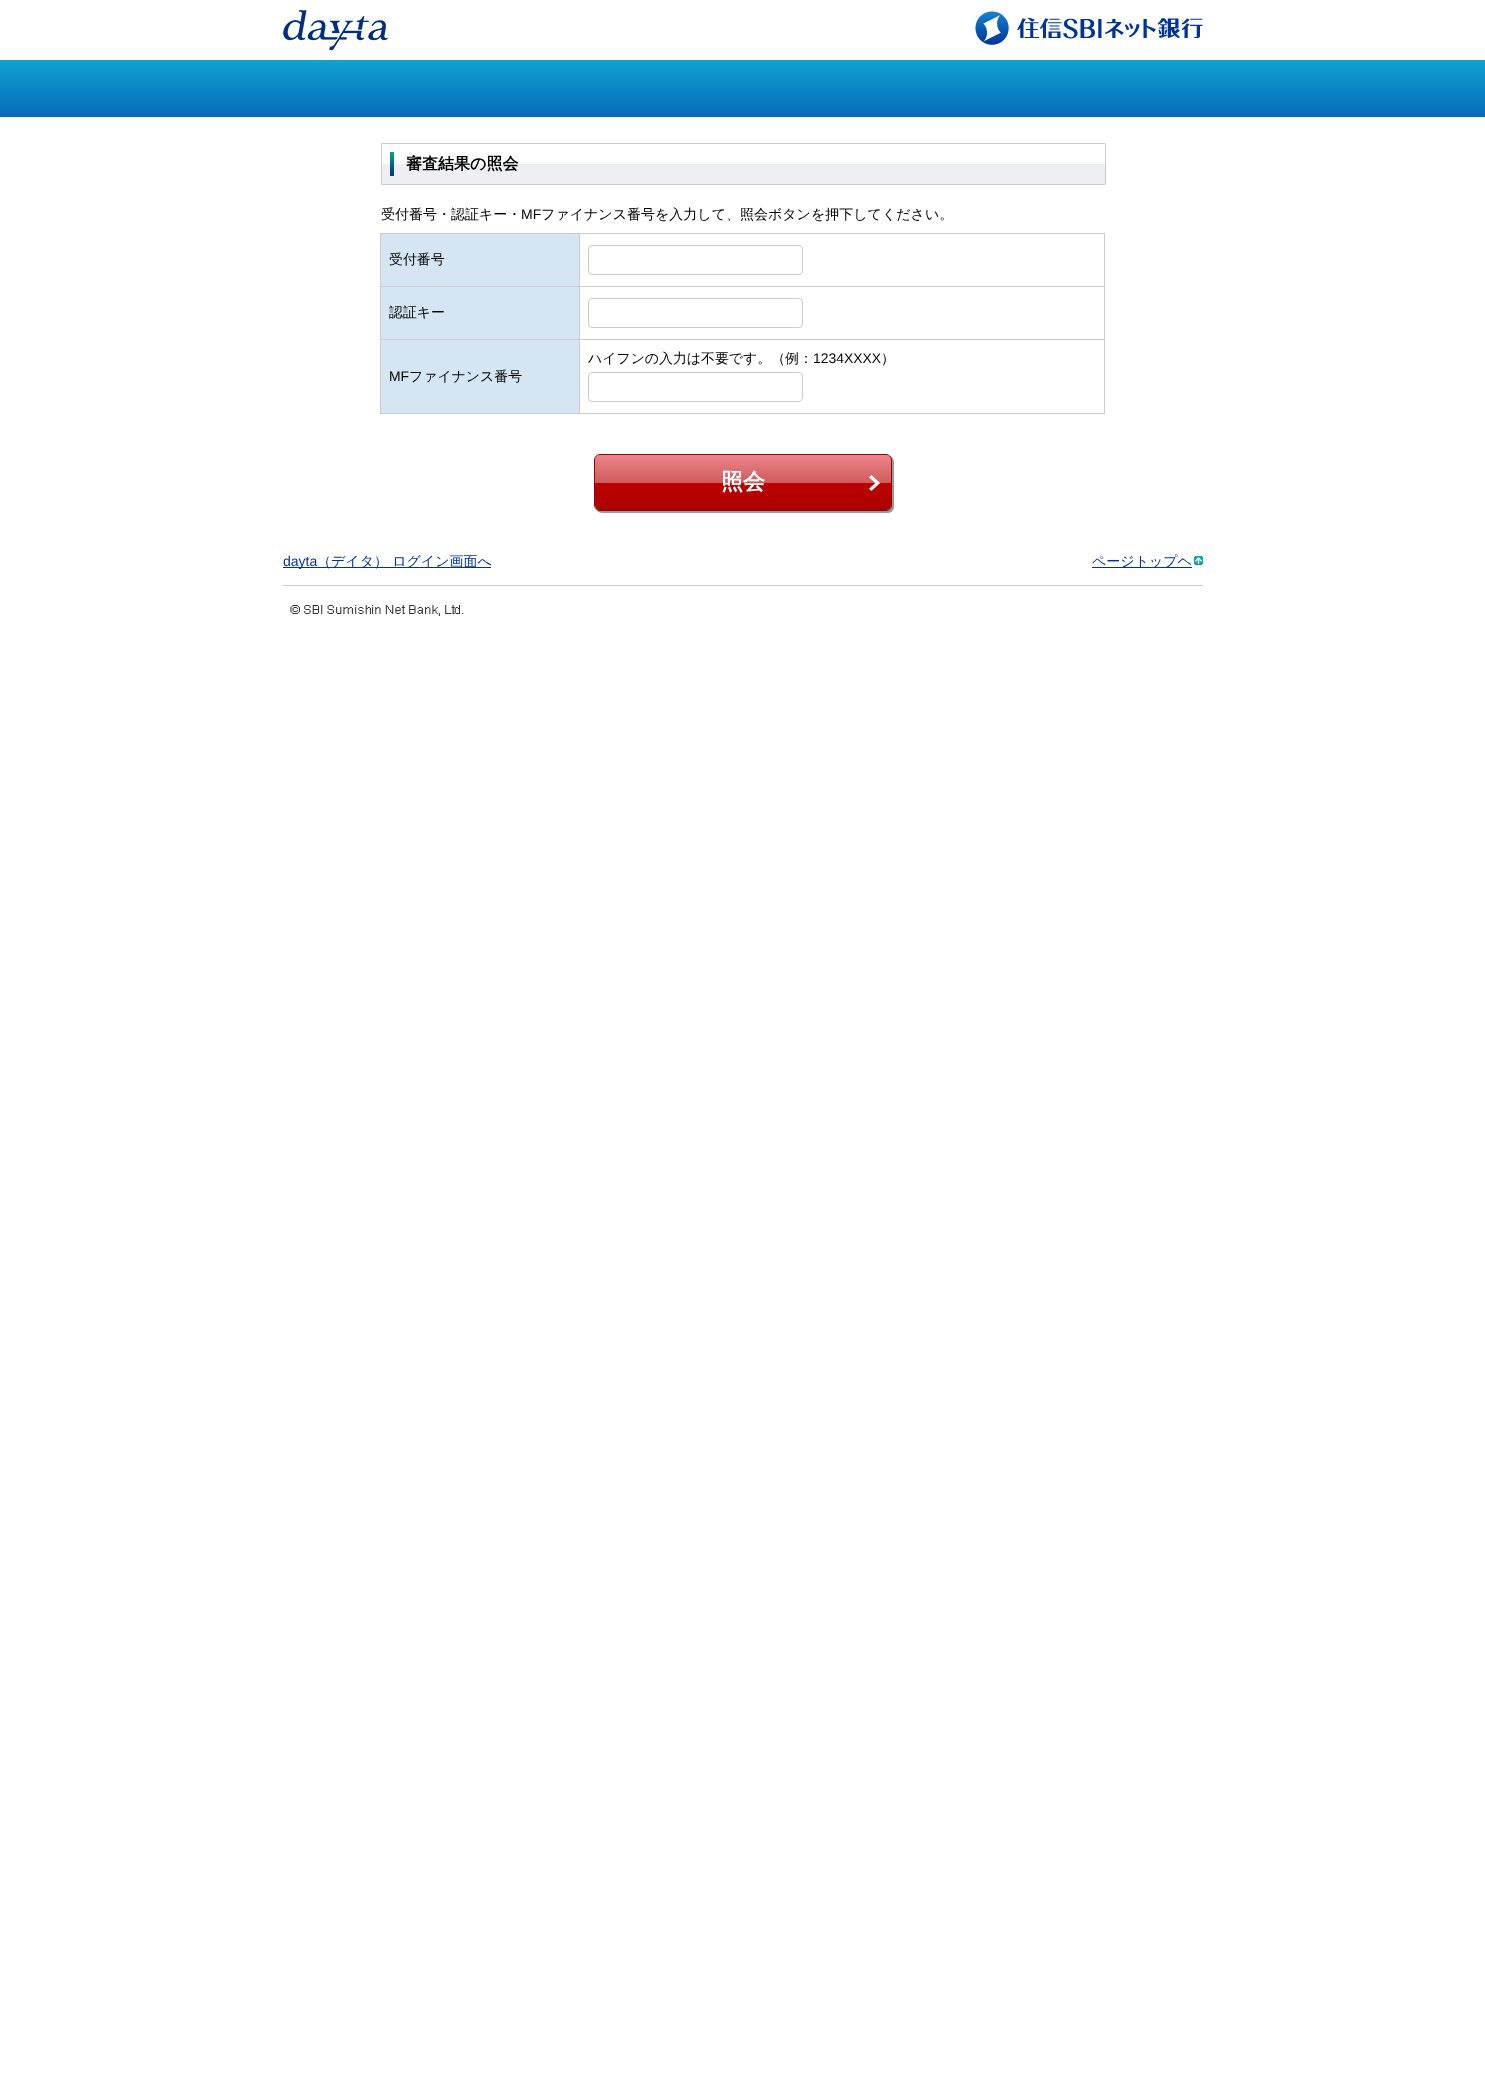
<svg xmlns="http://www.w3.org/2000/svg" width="1485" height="2092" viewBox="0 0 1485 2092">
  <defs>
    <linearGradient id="g1" gradientUnits="userSpaceOnUse" x1="743" y1="60" x2="743" y2="117"><stop offset="0" stop-color="#0fa3d3"/><stop offset="1" stop-color="#076bb6"/></linearGradient>
    <linearGradient id="g2" gradientUnits="userSpaceOnUse" x1="743" y1="455" x2="743" y2="510"><stop offset="0" stop-color="#ea858d"/><stop offset="0.5" stop-color="#d15c5c"/><stop offset="0.51" stop-color="#be0000"/><stop offset="1" stop-color="#ab0000"/></linearGradient>
  </defs>
  <rect width="100%" height="100%" fill="#fff"/>
  <image x="283" y="10" width="105" height="40" href="img/1.png"/>
  <image x="975" y="11" width="228" height="34" href="img/2.png"/>
  <path d="M0 60h1485v57H0z" fill="url(#g1)"/>
  <image x="382" y="152" width="723" height="32" href="img/3.png"/>
  <path d="M381.5 143.5h724v41H381.5z" fill="none" stroke="#ccc"/>
  <path d="M380 233h725v1H380z" fill="#ccc"/>
  <path d="M1104 233h1v181H1104z" fill="#ccc"/>
  <path d="M380 413h725v1H380z" fill="#ccc"/>
  <path d="M380 233h1v181H380z" fill="#ccc"/>
  <path d="M381 234h198v52H381z" fill="#d5e5f4"/>
  <path d="M579 286h526v1H579z" fill="#ccc"/>
  <path d="M579 339h526v1H579z" fill="#ccc"/>
  <path d="M579 339h1v75H579z" fill="#ccc"/>
  <path d="M380 339h200v1H380z" fill="#ccc"/>
  <path d="M579 286h1v54H579z" fill="#ccc"/>
  <path d="M380 286h200v1H380z" fill="#ccc"/>
  <path d="M579 233h1v54H579z" fill="#ccc"/>
  <rect x="588.5" y="245.5" width="214" height="29" rx="3.5" fill="none" stroke="#ccc"/>
  <path d="M381 287h198v52H381z" fill="#d5e5f4"/>
  <rect x="588.5" y="298.5" width="214" height="29" rx="3.5" fill="none" stroke="#ccc"/>
  <rect x="588.5" y="372.5" width="214" height="29" rx="3.5" fill="none" stroke="#ccc"/>
  <path d="M381 340h198v73H381z" fill="#d5e5f4"/>
  <rect x="596" y="456" width="298" height="57" rx="6" fill="#999" filter="blur(0.5px)"/>
  <rect x="595" y="455" width="296" height="55" rx="5" fill="url(#g2)"/>
  <rect x="594.5" y="454.5" width="297" height="56" rx="5.5" fill="none" stroke="#900"/>
  <image x="869" y="475" width="11" height="16" href="img/4.png"/>
  <path d="M283 567h208v1H283z" fill="#039"/>
  <image x="1194" y="556" width="9" height="9" href="img/5.png"/>
  <path d="M1092 567h100v1H1092z" fill="#039"/>
  <path d="M283 585h920v1H283z" fill="#ccc"/>
  <image x="290" y="605" width="174" height="11" href="img/6.png"/>
  <text x="406" y="169" font-family="WenQuanYi Zen Hei" font-size="16" font-weight="bold" fill="#000">審査結果の照会</text>
  <text x="381" y="219" font-family="WenQuanYi Zen Hei" font-size="14" font-weight="500" fill="#000">受付番号・認証キー・</text>
  <text x="521" y="219" font-family="Liberation Sans" font-size="14" fill="#000">MF</text>
  <text x="541" y="219" font-family="WenQuanYi Zen Hei" font-size="14" font-weight="500" fill="#000">ファイナンス番号を入力して、照会ボタンを押下してください。</text>
  <g font-family="WenQuanYi Zen Hei" font-size="13.9" font-weight="500" fill="#000">
    <text x="389" y="264">受付番号</text>
    <text x="389" y="317">認証キー</text>
    <text x="588" y="363">ハイフンの入力は不要です。（例：</text>
  </g>
  <text x="813" y="363" font-family="Liberation Sans" font-size="13.9" fill="#000">1234XXXX</text>
  <text x="881" y="363" font-family="WenQuanYi Zen Hei" font-size="13.9" font-weight="500" fill="#000">）</text>
  <text x="389" y="381" font-family="Liberation Sans" font-size="13.9" fill="#000">MF</text>
  <text x="409" y="381" font-family="WenQuanYi Zen Hei" font-size="13.9" font-weight="500" fill="#000">ファイナンス番号</text>
  <text x="721" y="489" font-family="WenQuanYi Zen Hei" font-size="22" font-weight="bold" fill="#fff">照会</text>
  <text x="283" y="566" font-family="Liberation Sans" font-size="14" fill="#039">dayta</text>
  <g font-family="WenQuanYi Zen Hei" font-size="14" font-weight="500" fill="#039">
    <text x="317" y="566">（デイタ） ログイン画面へ</text>
    <text x="1092" y="566">ページトップヘ</text>
  </g>
</svg>
